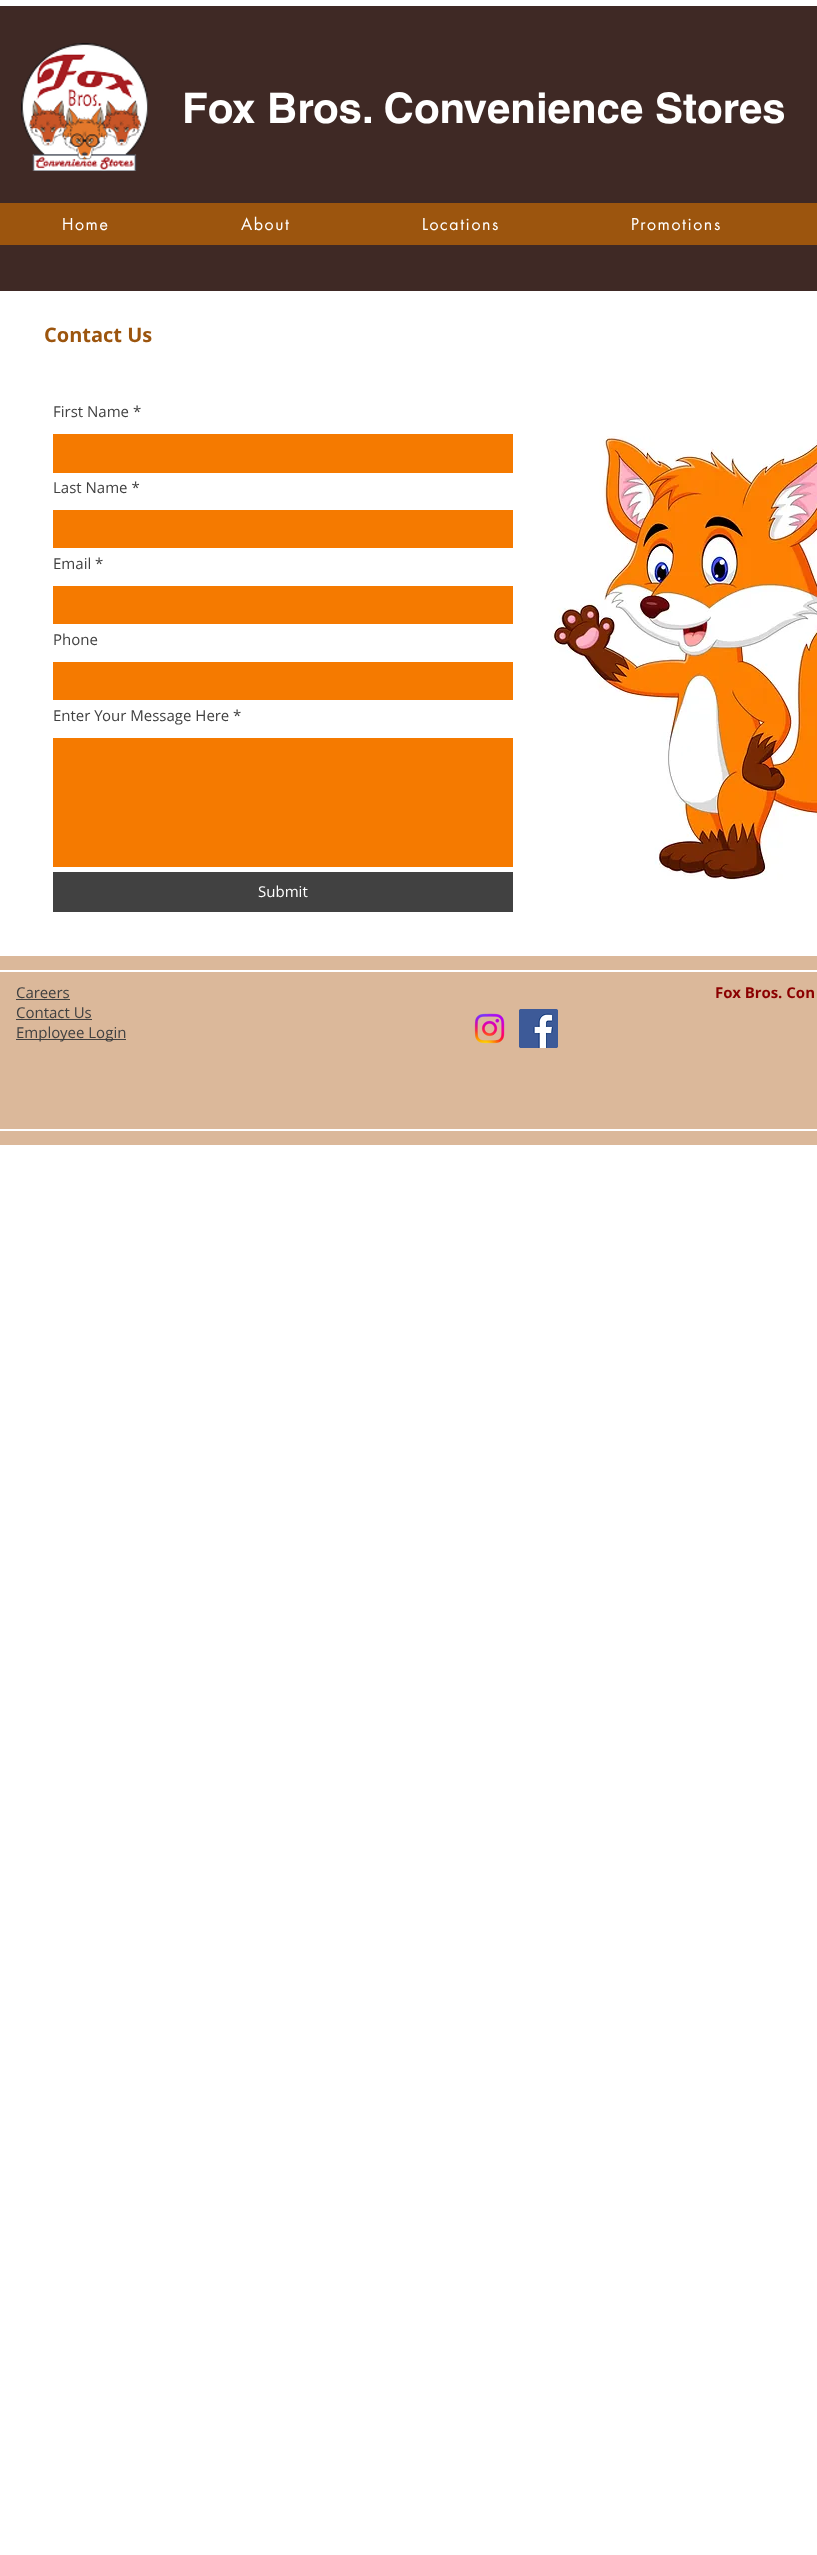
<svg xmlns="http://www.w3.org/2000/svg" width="817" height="2555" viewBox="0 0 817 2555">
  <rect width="100%" height="100%" fill="#fff"/>
  <path d="M0 6h817v285H0z" fill="#3f2925"/>
  <image x="21" y="43" width="127" height="128" href="img/1.png"/>
  <path d="M0 203h817v42H0z" fill="#9c550e"/>
  <path d="M53 434h460v39H53z" fill="#f57a00"/>
  <path d="M53 510h460v38H53z" fill="#f57a00"/>
  <path d="M53 586h460v38H53z" fill="#f57a00"/>
  <path d="M53 662h460v38H53z" fill="#f57a00"/>
  <path d="M53 738h460v129H53z" fill="#f57a00"/>
  <path d="M53 872h460v40H53z" fill="#414141"/>
  <image x="551" y="436" width="266" height="444" href="img/2.png"/>
  <path d="M0 956h817v189H0z" fill="#dbb89a"/>
  <path d="M0 970h817v2H0z" fill="#fff"/>
  <path d="M0 1129h817v2H0z" fill="#fff"/>
  <path d="M16 999h54v1H16z" fill="#414141"/>
  <path d="M16 1019h76v1H16z" fill="#414141"/>
  <path d="M16 1039h110v1H16z" fill="#414141"/>
  <image x="474" y="1013" width="31" height="31" href="img/3.png"/>
  <image x="519" y="1009" width="39" height="39" href="img/4.png"/>
  <text x="182" y="123" font-family="helvetica" font-size="42" font-weight="bold" fill="#fff">Fox Bros. Convenience Stores</text>
  <g font-family="futura" font-size="16" letter-spacing="1.6" fill="#fff">
    <text x="62" y="230">Home</text>
    <text x="241" y="230">About</text>
    <text x="422" y="230">Locations</text>
    <text x="631" y="230">Promotions</text>
  </g>
  <text x="44" y="342" font-family="Open Sans" font-size="20" font-weight="bold" fill="#9c550e">Contact Us</text>
  <g font-family="Open Sans" font-size="15" fill="#414141">
    <text x="53" y="417">First Name *</text>
    <text x="53" y="493">Last Name *</text>
    <text x="53" y="569">Email *</text>
    <text x="53" y="645">Phone</text>
    <text x="53" y="721">Enter Your Message Here *</text>
  </g>
  <text x="258" y="897" font-family="Open Sans" font-size="15" fill="#fff">Submit</text>
  <g font-family="Open Sans" font-size="15" fill="#414141">
    <text x="16" y="998">Careers</text>
    <text x="16" y="1018">Contact Us</text>
    <text x="16" y="1038">Employee Login</text>
  </g>
  <text x="715" y="998" font-family="Open Sans" font-size="15" font-weight="bold" fill="#8b0000">Fox Bros. Con</text>
</svg>
